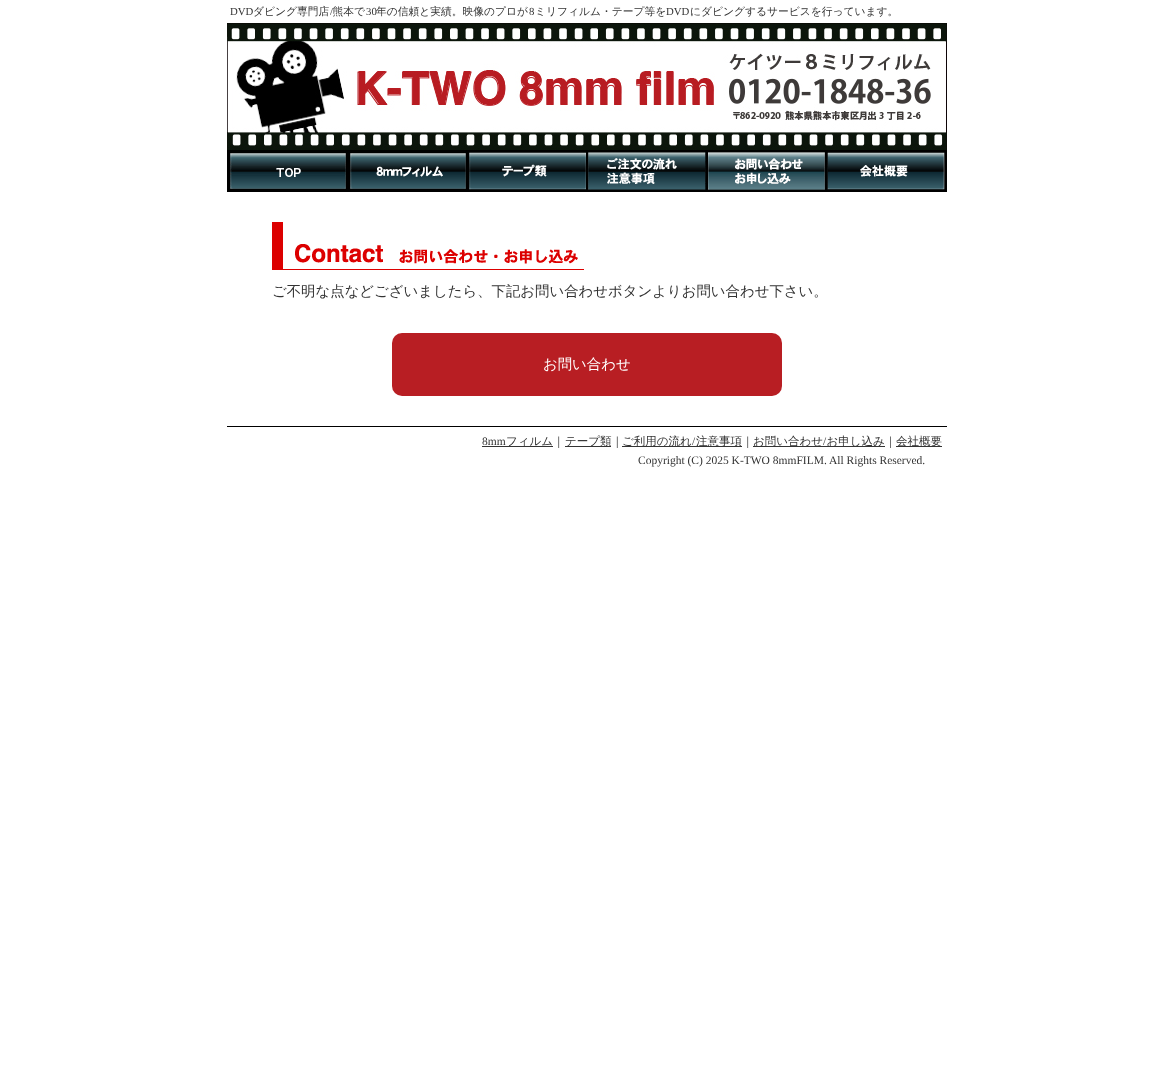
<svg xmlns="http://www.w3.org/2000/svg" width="1174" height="1087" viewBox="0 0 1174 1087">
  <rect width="100%" height="100%" fill="#fff"/>
  <path d="M227 426h720v1H227z" fill="#000"/>
  <image x="227" y="23" width="720" height="127" href="img/1.png"/>
  <image x="227" y="150" width="120" height="42" href="img/2.png"/>
  <image x="347" y="150" width="120" height="42" href="img/3.png"/>
  <image x="467" y="150" width="120" height="42" href="img/4.png"/>
  <image x="587" y="150" width="120" height="42" href="img/5.png"/>
  <image x="707" y="150" width="120" height="42" href="img/6.png"/>
  <image x="827" y="150" width="120" height="42" href="img/7.png"/>
  <image x="272" y="222" width="312" height="48" href="img/8.png"/>
  <rect x="392" y="333" width="390" height="63" rx="10" fill="#b81e23"/>
  <path d="M482 446h71v1H482z" fill="#333"/>
  <path d="M565 446h46v1H565z" fill="#333"/>
  <path d="M622 446h120v1H622z" fill="#333"/>
  <path d="M753 446h132v1H753z" fill="#333"/>
  <path d="M896 446h46v1H896z" fill="#333"/>
  <text x="230" y="15" font-family="Liberation Serif" font-size="10.75" fill="#333">DVD</text>
  <g font-family="WenQuanYi Zen Hei" font-size="10.75" font-weight="500" fill="#333">
    <text x="253" y="15">ダビング専門店 熊本で</text>
    <text x="535" y="15">ミリフィルム・テープ等を</text>
    <text x="690" y="15">にダビングするサービスを行っています。</text>
  </g>
  <g font-family="Liberation Serif" font-size="10.75" fill="#333">
    <text x="330" y="15">/</text>
    <text x="366" y="15">30</text>
  </g>
  <text x="376" y="15" font-family="WenQuanYi Zen Hei" font-size="10.75" font-weight="500" fill="#333">年の信頼と実績。映像のプロが</text>
  <g font-family="Liberation Serif" font-size="10.75" fill="#333">
    <text x="529" y="15">8</text>
    <text x="666" y="15">DVD</text>
  </g>
  <text x="272" y="296" font-family="WenQuanYi Zen Hei" font-size="14.4" font-weight="500" fill="#333">ご不明な点などございましたら、下記お問い合わせボタンよりお問い合わせ下さい。</text>
  <text x="543" y="369" font-family="WenQuanYi Zen Hei" font-size="14.4" font-weight="500" fill="#fff">お問い合わせ</text>
  <text x="482" y="445" font-family="Liberation Serif" font-size="11.5" fill="#333">8mm</text>
  <g font-family="WenQuanYi Zen Hei" font-size="11.5" font-weight="500" fill="#333">
    <text x="506" y="445">フィルム｜</text>
    <text x="565" y="445">テープ類｜</text>
    <text x="622" y="445">ご利用の流れ</text>
  </g>
  <text x="692" y="445" font-family="Liberation Serif" font-size="11.5" fill="#333">/</text>
  <g font-family="WenQuanYi Zen Hei" font-size="11.5" font-weight="500" fill="#333">
    <text x="696" y="445">注意事項｜</text>
    <text x="753" y="445">お問い合わせ お申し込み｜</text>
    <text x="896" y="445">会社概要</text>
  </g>
  <g font-family="Liberation Serif" font-size="11.5" fill="#333">
    <text x="823" y="445">/</text>
    <text x="638" y="464">Copyright (C) 2025 K-TWO 8mmFILM. All Rights Reserved.</text>
  </g>
</svg>
